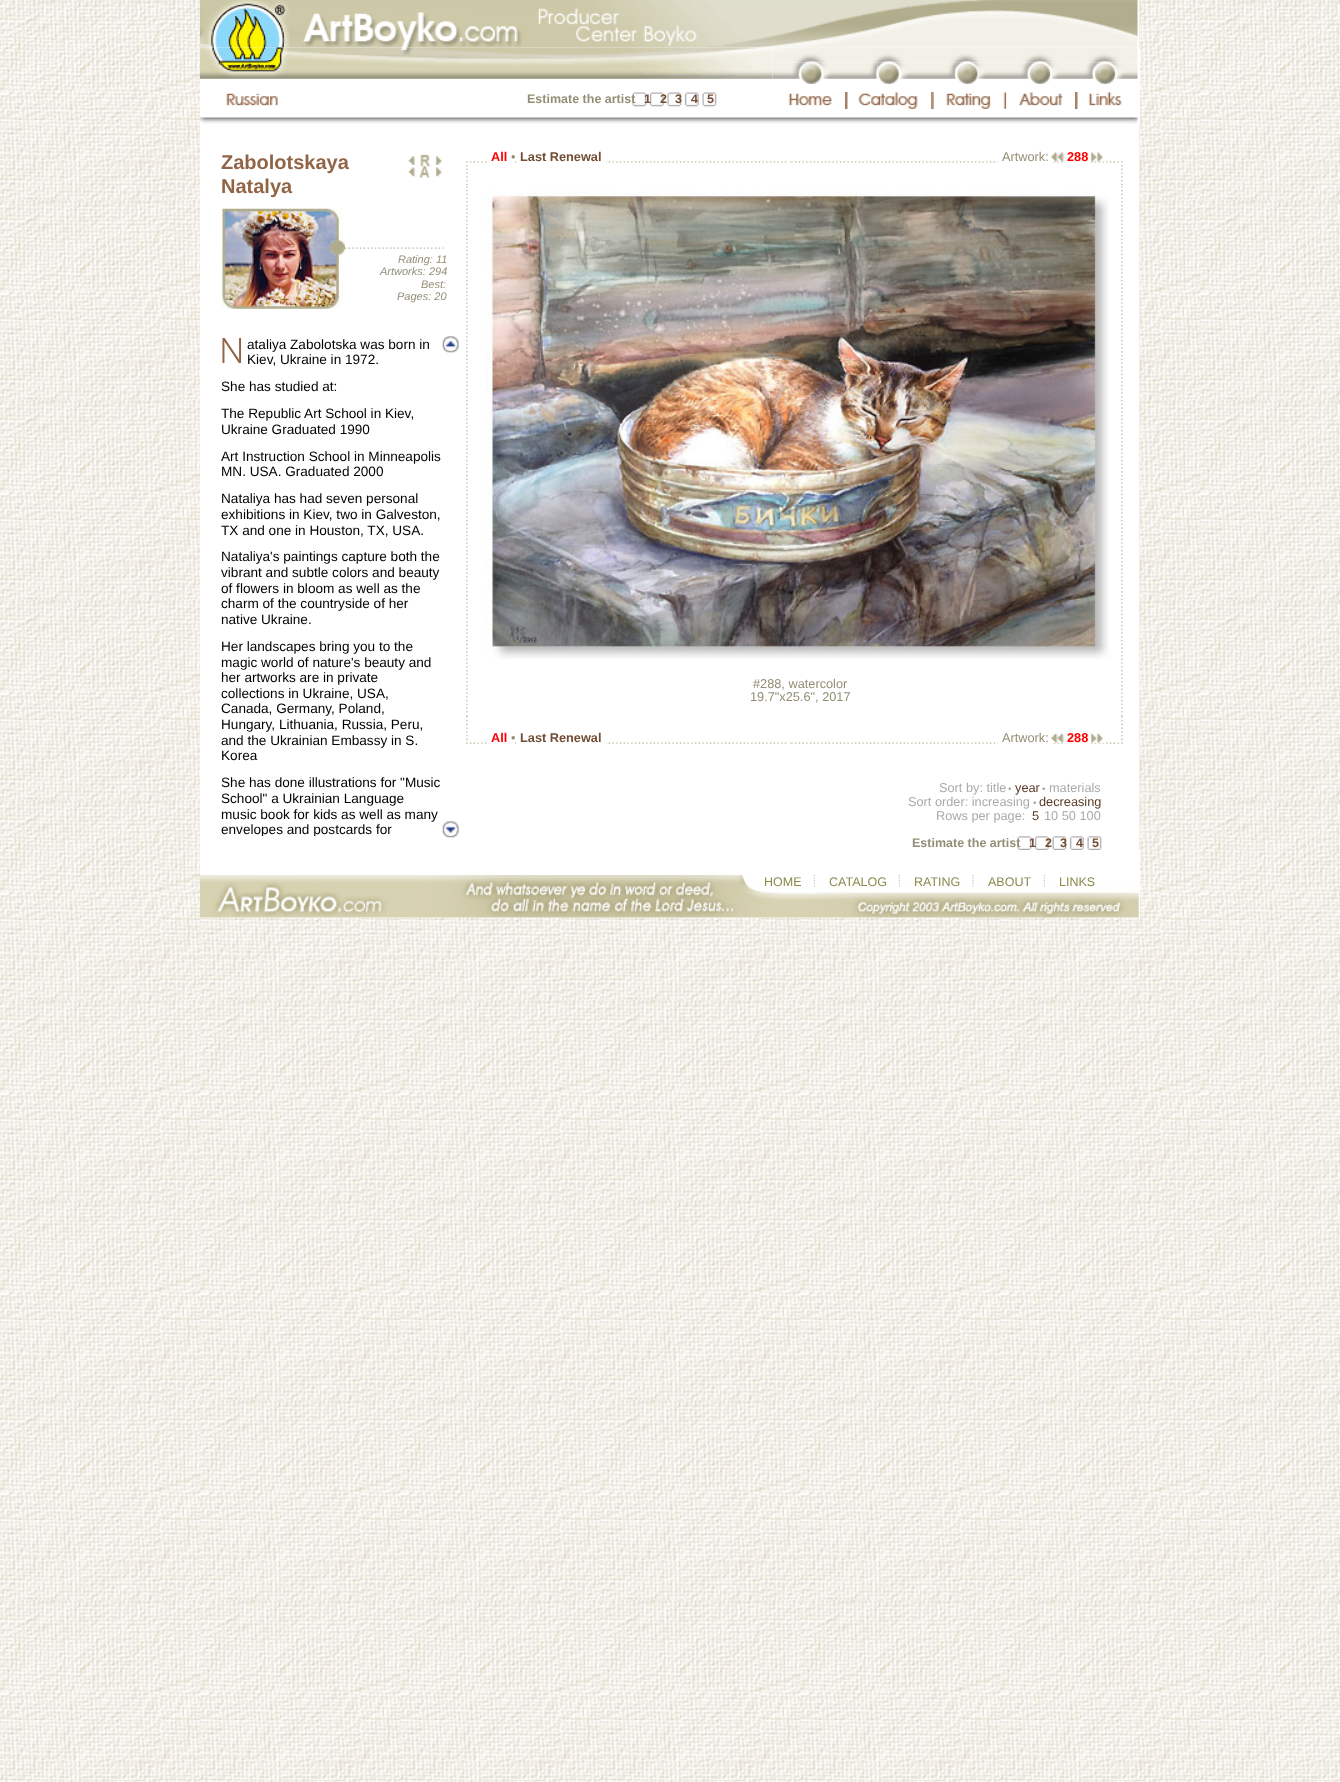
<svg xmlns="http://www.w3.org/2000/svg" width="1340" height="1782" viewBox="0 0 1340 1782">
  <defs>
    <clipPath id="clip1"><path d="M221 334h223v502H221z"/></clipPath>
  </defs>
  <rect width="100%" height="100%" fill="#fff"/>
  <image x="0" y="0" width="1340" height="1782" href="img/1.png"/>
  <path d="M200 0h940v918H200z" fill="#fff"/>
  <image x="200" y="0" width="938" height="48" href="img/2.png"/>
  <path d="M1139 0h1v48H1139z" fill="#f0eee5"/>
  <image x="200" y="47" width="573" height="32" href="img/3.png"/>
  <image x="772" y="47" width="366" height="16" href="img/4.png"/>
  <image x="772" y="62" width="28" height="17" href="img/5.png"/>
  <image x="800" y="62" width="23" height="22" href="img/6.png"/>
  <image x="822" y="62" width="56" height="17" href="img/7.png"/>
  <image x="877" y="62" width="23" height="22" href="img/8.png"/>
  <image x="900" y="62" width="57" height="17" href="img/9.png"/>
  <image x="956" y="62" width="23" height="22" href="img/10.png"/>
  <image x="978" y="62" width="51" height="17" href="img/11.png"/>
  <image x="1028" y="62" width="24" height="22" href="img/12.png"/>
  <image x="1051" y="62" width="43" height="17" href="img/13.png"/>
  <image x="1093" y="62" width="24" height="22" href="img/14.png"/>
  <image x="1116" y="62" width="22" height="17" href="img/15.png"/>
  <image x="226" y="93" width="52" height="13" href="img/16.png"/>
  <image x="788" y="93" width="45" height="13" href="img/17.png"/>
  <path d="M845 92h3v17H845z" fill="#a58168"/>
  <image x="847" y="92" width="71" height="17" href="img/18.png"/>
  <path d="M931 92h3v17H931z" fill="#b2927d"/>
  <image x="933" y="92" width="58" height="17" href="img/19.png"/>
  <image x="1003" y="92" width="4" height="17" href="img/20.png"/>
  <image x="1006" y="92" width="57" height="17" href="img/21.png"/>
  <path d="M1075 92h3v17H1075z" fill="#a58168"/>
  <image x="1077" y="92" width="45" height="17" href="img/22.png"/>
  <image x="632" y="92" width="85" height="15" href="img/23.png"/>
  <image x="200" y="117" width="938" height="7" href="img/24.png"/>
  <path d="M1139 124h1v25H1139z" fill="#f0eee5"/>
  <image x="408" y="156" width="8" height="9" href="img/25.png"/>
  <image x="420" y="155" width="11" height="12" href="img/26.png"/>
  <image x="435" y="156" width="7" height="9" href="img/27.png"/>
  <image x="408" y="167" width="8" height="10" href="img/28.png"/>
  <image x="419" y="166" width="11" height="12" href="img/29.png"/>
  <image x="435" y="167" width="7" height="10" href="img/30.png"/>
  <image x="222" y="208" width="123" height="101" href="img/31.png"/>
  <image x="345" y="247" width="99" height="2" href="img/32.png"/>
  <image x="442" y="336" width="17" height="17" href="img/33.png"/>
  <image x="442" y="821" width="17" height="17" href="img/34.png"/>
  <image x="515" y="161" width="272" height="2" href="img/35.png"/>
  <path d="M516 161h4v3H516z" fill="#fff"/>
  <path d="M520 161h83v2H520z" fill="#fff"/>
  <path d="M604 161h2v3H604z" fill="#fff"/>
  <image x="790" y="161" width="2" height="2" href="img/36.png"/>
  <image x="791" y="161" width="323" height="2" href="img/37.png"/>
  <path d="M998 161h50v2H998z" fill="#fff"/>
  <path d="M1049 154h3v9H1049z" fill="#fff"/>
  <image x="1051" y="152" width="14" height="10" href="img/38.png"/>
  <path d="M1065 154h1v9H1065z" fill="#fff"/>
  <path d="M1066 161h22v2H1066z" fill="#fff"/>
  <path d="M1088 154h1v9H1088z" fill="#fff"/>
  <image x="1090" y="152" width="14" height="10" href="img/39.png"/>
  <image x="466" y="161" width="21" height="25" href="img/40.png"/>
  <image x="1113" y="161" width="10" height="25" href="img/41.png"/>
  <image x="466" y="186" width="2" height="531" href="img/42.png"/>
  <image x="486" y="190" width="623" height="469" href="img/43.png"/>
  <image x="1121" y="186" width="2" height="531" href="img/44.png"/>
  <image x="466" y="716" width="21" height="28" href="img/45.png"/>
  <image x="515" y="742" width="272" height="2" href="img/46.png"/>
  <path d="M516 742h4v3H516z" fill="#fff"/>
  <path d="M520 742h83v2H520z" fill="#fff"/>
  <path d="M604 742h2v3H604z" fill="#fff"/>
  <image x="790" y="742" width="2" height="2" href="img/47.png"/>
  <image x="791" y="742" width="323" height="2" href="img/48.png"/>
  <path d="M998 742h50v2H998z" fill="#fff"/>
  <path d="M1049 735h3v9H1049z" fill="#fff"/>
  <path d="M1053 742h12v1H1053z" fill="#fff"/>
  <image x="1051" y="733" width="14" height="10" href="img/49.png"/>
  <path d="M1065 735h1v9H1065z" fill="#fff"/>
  <path d="M1066 742h22v2H1066z" fill="#fff"/>
  <path d="M1088 735h1v9H1088z" fill="#fff"/>
  <path d="M1091 742h13v1H1091z" fill="#fff"/>
  <image x="1090" y="733" width="13" height="10" href="img/50.png"/>
  <image x="1113" y="716" width="10" height="28" href="img/51.png"/>
  <image x="1017" y="836" width="85" height="14" href="img/52.png"/>
  <path d="M1139 150h1v700H1139z" fill="#f0eee5"/>
  <image x="200" y="875" width="939" height="43" href="img/53.png"/>
  <image x="813" y="875" width="2" height="12" href="img/54.png"/>
  <image x="898" y="875" width="2" height="12" href="img/55.png"/>
  <image x="972" y="875" width="2" height="12" href="img/56.png"/>
  <image x="1043" y="875" width="2" height="12" href="img/55.png"/>
  <text x="527" y="103" font-family="Liberation Sans" font-size="12.5" font-weight="bold" fill="#928e75">Estimate the artist</text>
  <g font-family="Liberation Sans" font-size="12.5" font-weight="bold" fill="#724d34">
    <text x="644" y="103">1</text>
    <text x="660" y="103">2</text>
    <text x="675" y="103">3</text>
    <text x="691" y="103">4</text>
    <text x="707" y="103">5</text>
  </g>
  <g font-family="Liberation Sans" font-size="20" font-weight="bold" fill="#916445">
    <text x="221" y="169">Zabolotskaya</text>
    <text x="221" y="193">Natalya</text>
  </g>
  <g font-family="Liberation Sans" font-size="11" font-style="italic" fill="#928e75">
    <text x="398" y="263">Rating: 11</text>
    <text x="380" y="275">Artworks: 294</text>
    <text x="421" y="288">Best:</text>
    <text x="397" y="300">Pages: 20</text>
  </g>
  <text x="219" y="363" font-family="Noto Sans" font-size="35" font-weight="300" fill="#916445">N</text>
  <g font-family="Liberation Sans" font-size="13.6" fill="#000">
    <text x="247" y="349">ataliya Zabolotska was born in</text>
    <text x="247" y="364">Kiev, Ukraine in 1972.</text>
    <text x="221" y="391">She has studied at:</text>
    <text x="221" y="418">The Republic Art School in Kiev,</text>
    <text x="221" y="434">Ukraine Graduated 1990</text>
    <text x="221" y="461">Art Instruction School in Minneapolis</text>
    <text x="221" y="476">MN. USA. Graduated 2000</text>
    <text x="221" y="503">Nataliya has had seven personal</text>
    <text x="221" y="519">exhibitions in Kiev, two in Galveston,</text>
    <text x="221" y="535">TX and one in Houston, TX, USA.</text>
    <text x="221" y="561">Nataliya's paintings capture both the</text>
    <text x="221" y="577">vibrant and subtle colors and beauty</text>
    <text x="221" y="593">of flowers in bloom as well as the</text>
    <text x="221" y="608">charm of the countryside of her</text>
    <text x="221" y="624">native Ukraine.</text>
    <text x="221" y="651">Her landscapes bring you to the</text>
    <text x="221" y="667">magic world of nature's beauty and</text>
    <text x="221" y="682">her artworks are in private</text>
    <text x="221" y="698">collections in Ukraine, USA,</text>
    <text x="221" y="713">Canada, Germany, Poland,</text>
    <text x="221" y="729">Hungary, Lithuania, Russia, Peru,</text>
    <text x="221" y="745">and the Ukrainian Embassy in S.</text>
    <text x="221" y="760">Korea</text>
    <text x="221" y="787">She has done illustrations for "Music</text>
    <text x="221" y="803">School" a Ukrainian Language</text>
    <text x="221" y="819">music book for kids as well as many</text>
  </g>
  <g clip-path="url(#clip1)">
    <text x="221" y="834" font-family="Liberation Sans" font-size="13.6" fill="#000">envelopes and postcards for</text>
  </g>
  <text x="491" y="161" font-family="Liberation Sans" font-size="12.75" font-weight="bold" fill="#f00">All</text>
  <text x="511" y="161" font-family="Liberation Sans" font-size="12.75" fill="#928e75">•</text>
  <text x="520" y="161" font-family="Liberation Sans" font-size="12.75" font-weight="bold" fill="#724d34">Last Renewal</text>
  <text x="1002" y="161" font-family="Liberation Sans" font-size="12.75" fill="#928e75">Artwork:</text>
  <text x="1067" y="161" font-family="Liberation Sans" font-size="12.75" font-weight="bold" fill="#f00">288</text>
  <g font-family="Liberation Sans" font-size="12.75" fill="#928e75">
    <text x="753" y="688">#288, watercolor</text>
    <text x="750" y="701">19.7"x25.6", 2017</text>
  </g>
  <text x="491" y="742" font-family="Liberation Sans" font-size="12.75" font-weight="bold" fill="#f00">All</text>
  <text x="511" y="742" font-family="Liberation Sans" font-size="12.75" fill="#928e75">•</text>
  <text x="520" y="742" font-family="Liberation Sans" font-size="12.75" font-weight="bold" fill="#724d34">Last Renewal</text>
  <text x="1002" y="742" font-family="Liberation Sans" font-size="12.75" fill="#928e75">Artwork:</text>
  <text x="1067" y="742" font-family="Liberation Sans" font-size="12.75" font-weight="bold" fill="#f00">288</text>
  <text x="939" y="792" font-family="Liberation Sans" font-size="12.75" fill="#aaa">Sort by: title</text>
  <text x="1008" y="792" font-family="Liberation Sans" font-size="10" fill="#aaa">•</text>
  <text x="1015" y="792" font-family="Liberation Sans" font-size="12.75" fill="#593a25">year</text>
  <text x="1042" y="792" font-family="Liberation Sans" font-size="10" fill="#aaa">•</text>
  <g font-family="Liberation Sans" font-size="12.75" fill="#aaa">
    <text x="1049" y="792">materials</text>
    <text x="908" y="806">Sort order: increasing</text>
  </g>
  <text x="1033" y="806" font-family="Liberation Sans" font-size="10" fill="#aaa">•</text>
  <text x="1039" y="806" font-family="Liberation Sans" font-size="12.75" fill="#593a25">decreasing</text>
  <text x="936" y="820" font-family="Liberation Sans" font-size="12.75" fill="#aaa">Rows per page:</text>
  <text x="1032" y="820" font-family="Liberation Sans" font-size="12.75" fill="#593a25">5</text>
  <text x="1044" y="820" font-family="Liberation Sans" font-size="12.75" fill="#aaa">10 50 100</text>
  <text x="912" y="847" font-family="Liberation Sans" font-size="12.5" font-weight="bold" fill="#928e75">Estimate the artist</text>
  <g font-family="Liberation Sans" font-size="12.5" font-weight="bold" fill="#724d34">
    <text x="1029" y="847">1</text>
    <text x="1045" y="847">2</text>
    <text x="1060" y="847">3</text>
    <text x="1076" y="847">4</text>
    <text x="1092" y="847">5</text>
  </g>
  <g font-family="Liberation Sans" font-size="12.5" fill="#8a894c">
    <text x="764" y="886">HOME</text>
    <text x="829" y="886">CATALOG</text>
    <text x="914" y="886">RATING</text>
    <text x="988" y="886">ABOUT</text>
    <text x="1059" y="886">LINKS</text>
  </g>
</svg>
